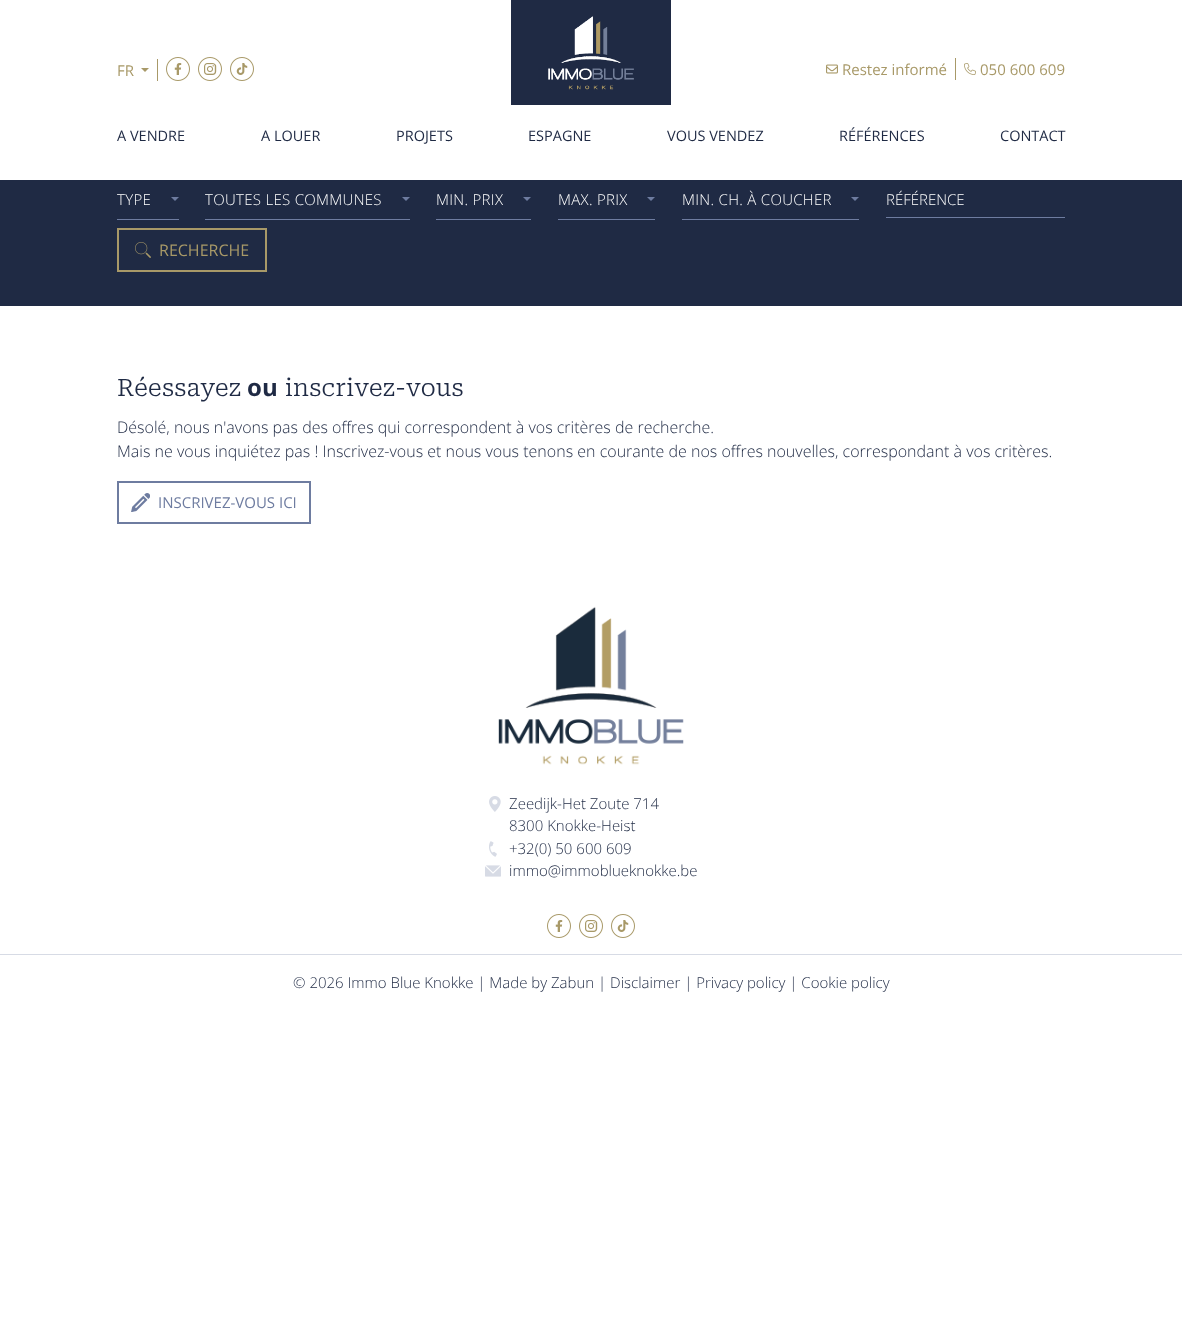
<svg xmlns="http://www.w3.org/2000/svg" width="1182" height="1321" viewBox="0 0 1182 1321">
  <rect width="100%" height="100%" fill="#fff"/>
  <path d="M511 0h160v105H511z" fill="#1f2a44"/>
  <image x="548" y="16" width="86" height="74" href="img/1.png"/>
  <path d="M157 59h1v22H157z" fill="#a89968"/>
  <path d="M141 68H149L145 72Z" fill="#a89968"/>
  <image x="166" y="57" width="24" height="24" href="img/2.png"/>
  <image x="198" y="57" width="24" height="24" href="img/3.png"/>
  <image x="230" y="57" width="24" height="24" href="img/4.png"/>
  <image x="826" y="64" width="12" height="10" href="img/5.png"/>
  <path d="M955 58h1v22H955z" fill="#a89968"/>
  <image x="964" y="63" width="12" height="12" href="img/6.png"/>
  <path d="M0 180h1182v126H0z" fill="#1f2a44"/>
  <path d="M117 219h62v1H117z" fill="#6e7ca0"/>
  <path d="M171 197H179L175 201Z" fill="#6e7ca0"/>
  <path d="M205 219h205v1H205z" fill="#6e7ca0"/>
  <path d="M402 197H410L406 201Z" fill="#6e7ca0"/>
  <path d="M436 219h95v1H436z" fill="#6e7ca0"/>
  <path d="M523 197H531L527 201Z" fill="#6e7ca0"/>
  <path d="M558 219h97v1H558z" fill="#6e7ca0"/>
  <path d="M647 197H655L651 201Z" fill="#6e7ca0"/>
  <path d="M682 219h177v1H682z" fill="#6e7ca0"/>
  <path d="M851 197H859L855 201Z" fill="#6e7ca0"/>
  <path d="M886 217h179v1H886z" fill="#6e7ca0"/>
  <path d="M118 229h148v42H118z" fill="none" stroke="#a89968" stroke-width="2"/>
  <image x="135" y="242" width="16" height="16" href="img/7.png"/>
  <path d="M118 482h192v41H118z" fill="none" stroke="#6e7ca0" stroke-width="2"/>
  <image x="131" y="493" width="19" height="19" href="img/8.png"/>
  <image x="498" y="606" width="186" height="159" href="img/9.png"/>
  <image x="489" y="796" width="12" height="16" href="img/10.png"/>
  <image x="489" y="841" width="8" height="16" href="img/11.png"/>
  <image x="485" y="865" width="16" height="12" href="img/12.png"/>
  <image x="547" y="914" width="24" height="24" href="img/2.png"/>
  <image x="579" y="914" width="24" height="24" href="img/3.png"/>
  <image x="611" y="914" width="24" height="24" href="img/4.png"/>
  <path d="M0 954h1182v1H0z" fill="#d7dbe5"/>
  <g font-family="Open Sans" font-size="15" fill="#a89968">
    <text x="117" y="76">FR</text>
    <text x="842" y="75">Restez informé</text>
    <text x="980" y="75">050 600 609</text>
  </g>
  <g font-family="Open Sans" font-size="14.5" fill="#1f2a44">
    <text x="117" y="141">A VENDRE</text>
    <text x="261" y="141">A LOUER</text>
    <text x="396" y="141">PROJETS</text>
    <text x="528" y="141">ESPAGNE</text>
    <text x="667" y="141">VOUS VENDEZ</text>
    <text x="839" y="141">RÉFÉRENCES</text>
    <text x="1000" y="141">CONTACT</text>
  </g>
  <g font-family="Open Sans" font-size="15" font-weight="300" letter-spacing="0.3" fill="#fff">
    <text x="117" y="205">TYPE</text>
    <text x="205" y="205">TOUTES LES COMMUNES</text>
    <text x="436" y="205">MIN. PRIX</text>
    <text x="558" y="205">MAX. PRIX</text>
    <text x="682" y="205">MIN. CH. À COUCHER</text>
  </g>
  <text x="886" y="205" font-family="Open Sans" font-size="15" font-weight="300" fill="#fff">RÉFÉRENCE</text>
  <text x="159" y="256" font-family="Open Sans" font-size="16" fill="#a89968">RECHERCHE</text>
  <text x="117" y="396" font-family="Roboto Serif" font-size="24" font-weight="300" letter-spacing="0.25" fill="#1f2a44">Réessayez</text>
  <text x="247" y="396" font-family="Open Sans" font-size="24" font-weight="bold" letter-spacing="0.25" fill="#1f2a44">ou</text>
  <text x="285" y="396" font-family="Roboto Serif" font-size="24" font-weight="300" letter-spacing="0.25" fill="#1f2a44">inscrivez-vous</text>
  <g font-family="Open Sans" font-size="16" font-weight="300" fill="#1f2a44">
    <text x="117" y="433">Désolé, nous n'avons pas des offres qui correspondent à vos critères de recherche.</text>
    <text x="117" y="457">Mais ne vous inquiétez pas ! Inscrivez-vous et nous vous tenons en courante de nos offres nouvelles, correspondant à vos critères.</text>
  </g>
  <text x="158" y="508" font-family="Open Sans" font-size="15" fill="#6e7ca0">INSCRIVEZ-VOUS ICI</text>
  <g font-family="Open Sans" font-size="15" font-weight="300" fill="#1f2a44">
    <text x="509" y="809">Zeedijk-Het Zoute 714</text>
    <text x="509" y="831">8300 Knokke-Heist</text>
    <text x="509" y="854">+32(0) 50 600 609</text>
    <text x="509" y="876">immo@immoblueknokke.be</text>
    <text x="293" y="988">© 2026 Immo Blue Knokke | Made by Zabun | Disclaimer | Privacy policy | Cookie policy</text>
  </g>
</svg>
